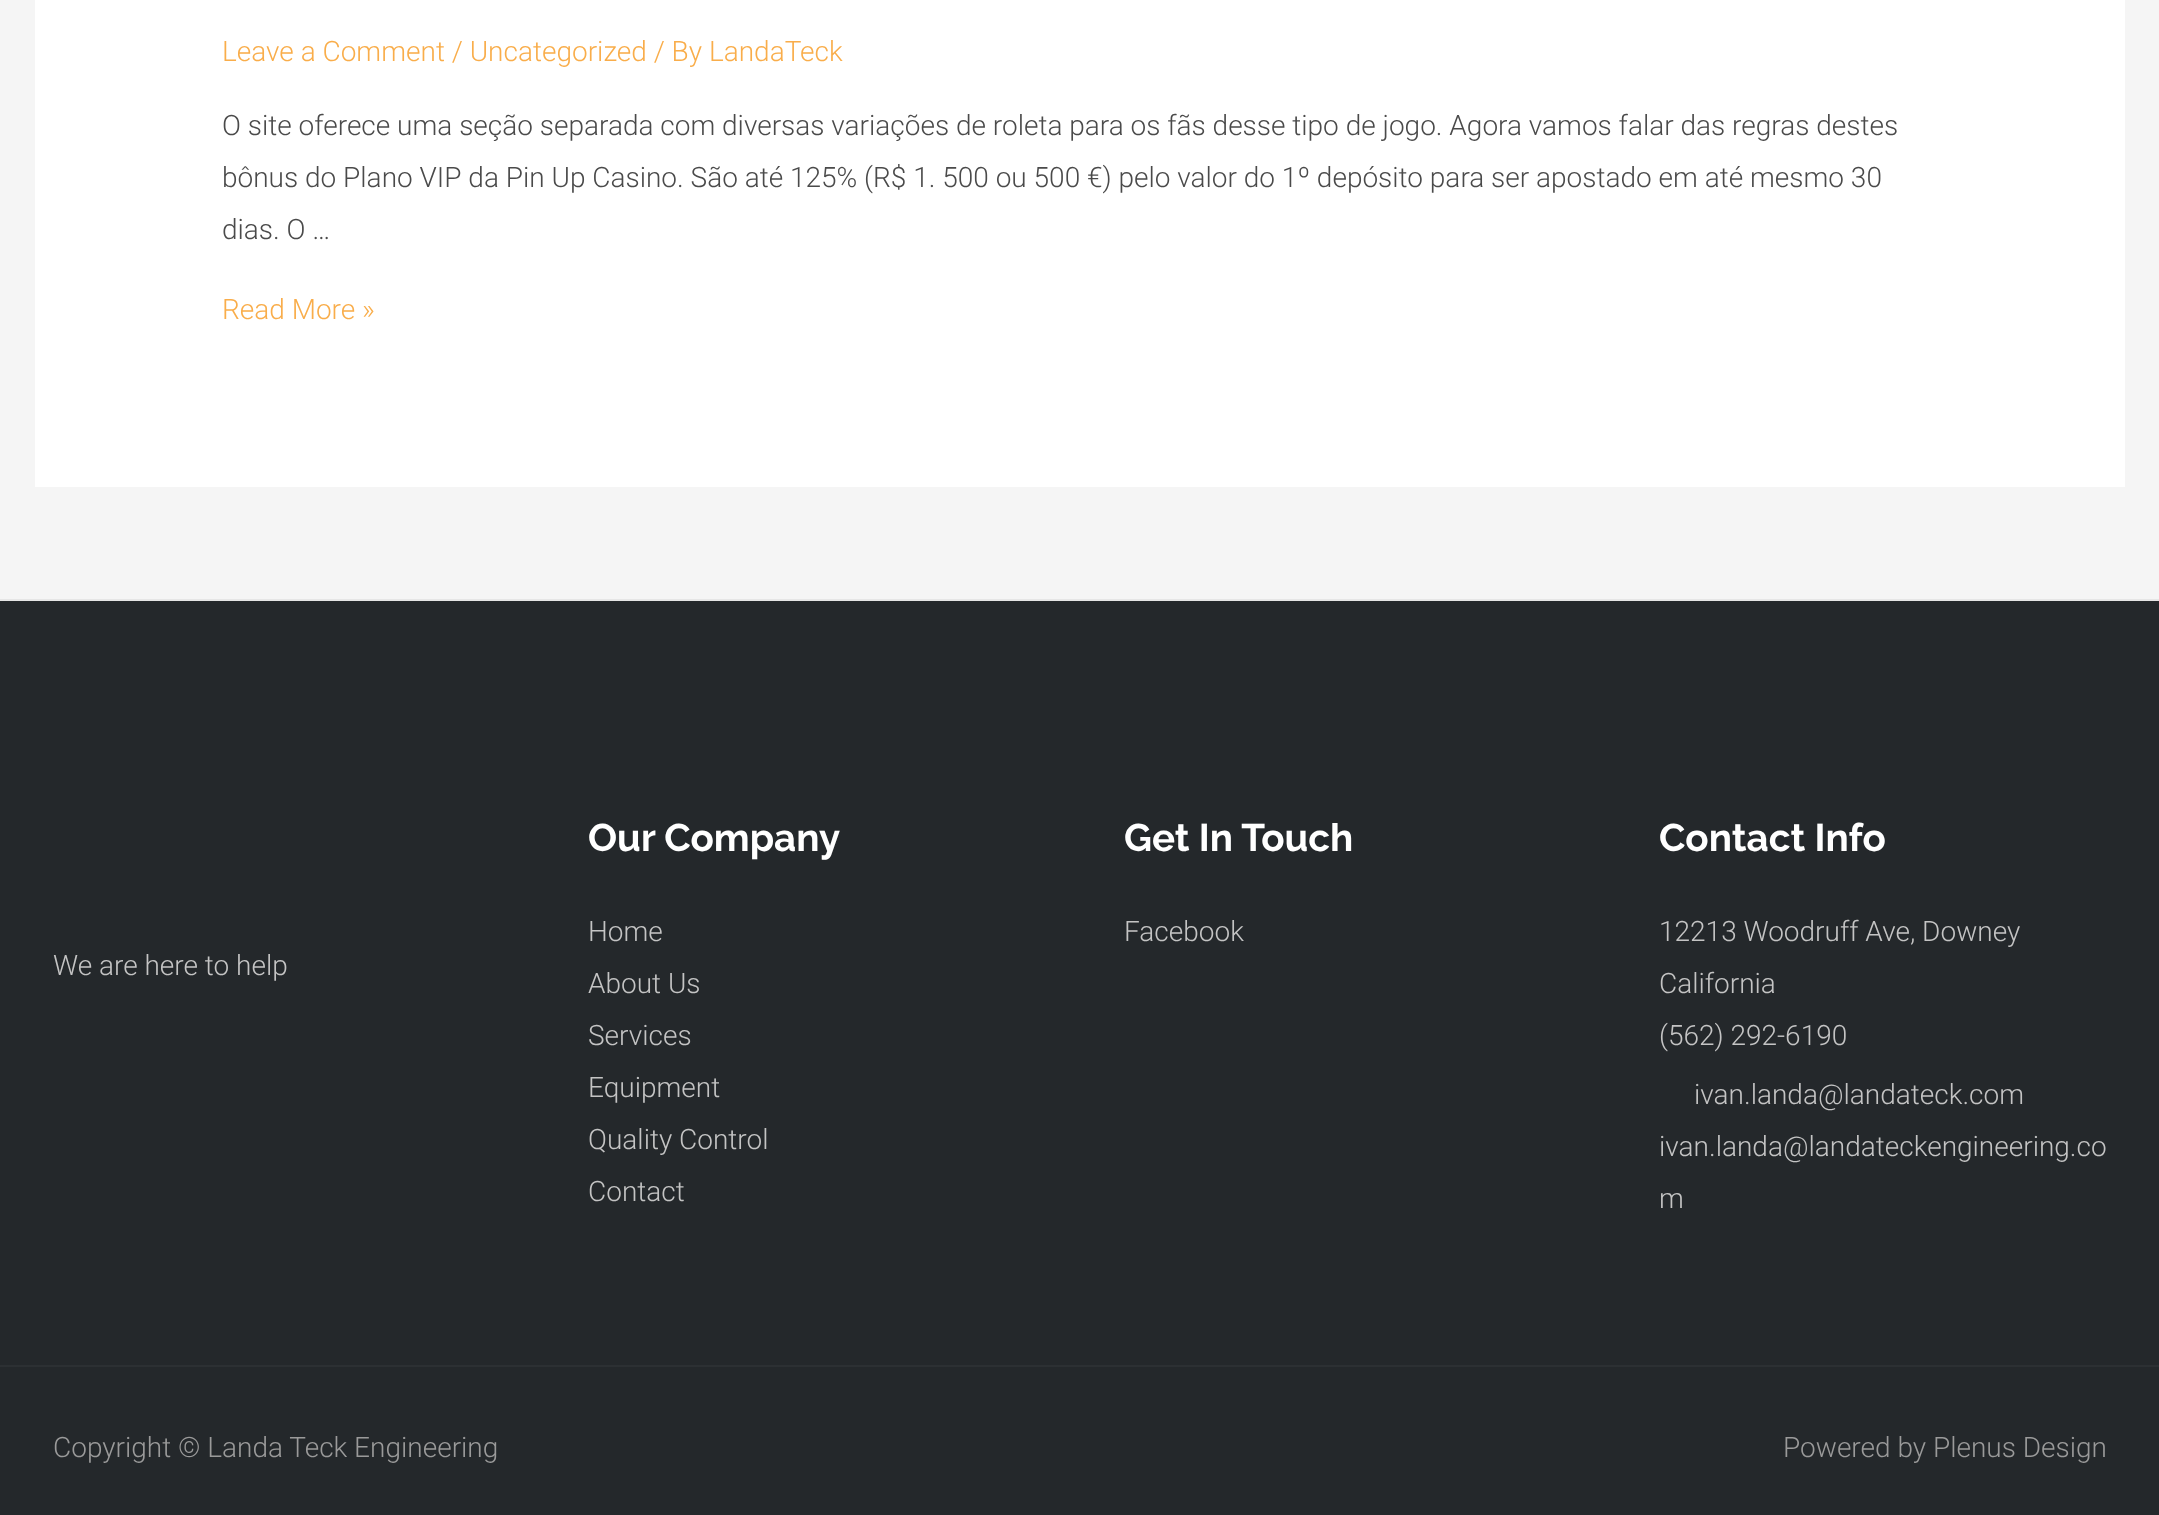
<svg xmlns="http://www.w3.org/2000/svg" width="2159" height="1515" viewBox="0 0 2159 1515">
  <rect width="100%" height="100%" fill="#f5f5f5"/>
  <path d="M35 0h2090v487H35z" fill="#fff"/>
  <path d="M0 601h2159v764H0z" fill="#24282b"/>
  <path d="M0 599h2159v2H0z" fill="#e6e6e6"/>
  <path d="M0 1367h2159v148H0z" fill="#24282b"/>
  <path d="M0 1365h2159v2H0z" fill="#2c3033"/>
  <text x="222" y="61" font-family="Roboto" font-size="28" font-weight="300" fill="#f9ad4a">Leave a Comment / Uncategorized / By LandaTeck</text>
  <g font-family="Roboto" font-size="28" font-weight="300" fill="#4a4a4a">
    <text x="222" y="135">O site oferece uma seção separada com diversas variações de roleta para os fãs desse tipo de jogo. Agora vamos falar das regras destes</text>
    <text x="222" y="187">bônus do Plano VIP da Pin Up Casino. São até 125% (R$ 1. 500 ou 500 €) pelo valor do 1º depósito para ser apostado em até mesmo 30</text>
    <text x="222" y="239">dias. O …</text>
  </g>
  <text x="222" y="319" font-family="Roboto" font-size="28" font-weight="300" fill="#f9ad4a">Read More »</text>
  <text x="53" y="975" font-family="Roboto" font-size="28" font-weight="300" fill="#c4c4c4">We are here to help</text>
  <text x="588" y="851" font-family="Raleway" font-size="38.5" font-weight="100" fill="#fff">Our Company</text>
  <g font-family="Roboto" font-size="28" font-weight="300" fill="#c4c4c4">
    <text x="588" y="941">Home</text>
    <text x="588" y="993">About Us</text>
    <text x="588" y="1045">Services</text>
    <text x="588" y="1097">Equipment</text>
    <text x="588" y="1149">Quality Control</text>
    <text x="588" y="1201">Contact</text>
  </g>
  <text x="1124" y="851" font-family="Raleway" font-size="38.5" font-weight="100" fill="#fff">Get In Touch</text>
  <text x="1124" y="941" font-family="Roboto" font-size="28" font-weight="300" fill="#c4c4c4">Facebook</text>
  <text x="1659" y="851" font-family="Raleway" font-size="38.5" font-weight="100" fill="#fff">Contact Info</text>
  <g font-family="Roboto" font-size="28" font-weight="300" fill="#c4c4c4">
    <text x="1659" y="941">12213 Woodruff Ave, Downey</text>
    <text x="1659" y="993">California</text>
    <text x="1659" y="1045">(562) 292-6190</text>
    <text x="1694" y="1104">ivan.landa@landateck.com</text>
    <text x="1659" y="1156">ivan.landa@landateckengineering.co</text>
    <text x="1659" y="1208">m</text>
  </g>
  <g font-family="Roboto" font-size="28" font-weight="300" fill="#9a9a9a">
    <text x="53" y="1457">Copyright © Landa Teck Engineering</text>
    <text x="1783" y="1457">Powered by Plenus Design</text>
  </g>
</svg>
